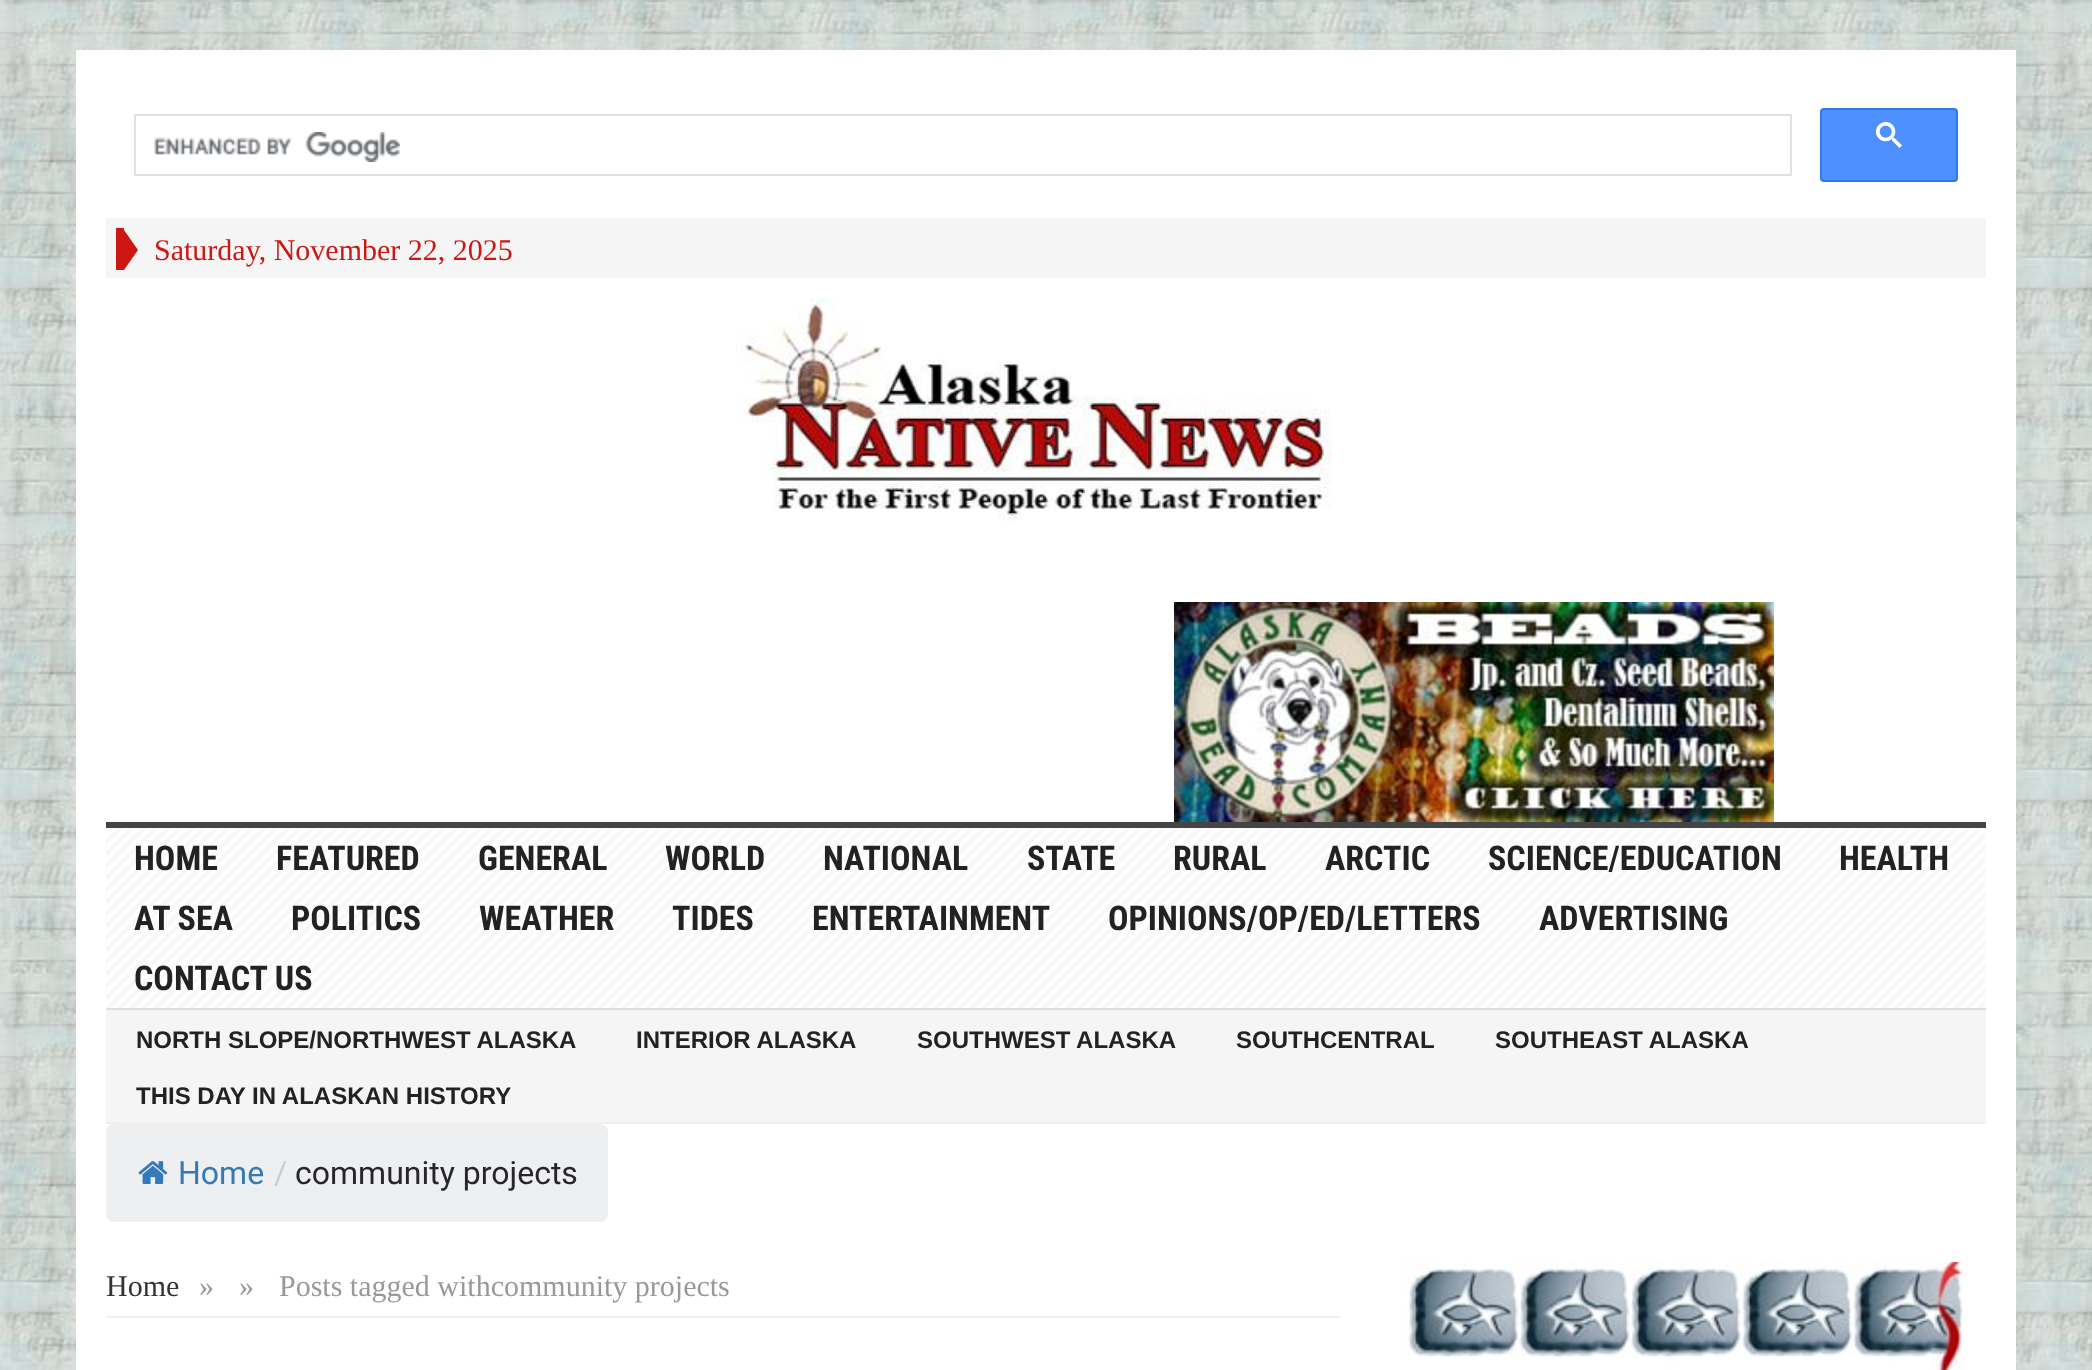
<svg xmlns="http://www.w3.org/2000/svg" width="2092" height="1370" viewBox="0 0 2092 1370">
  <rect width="100%" height="100%" fill="#fff"/>
  <image x="0" y="0" width="2092" height="1370" href="img/1.png"/>
  <path d="M76 50h1940v1320H76z" fill="#fff"/>
  <path d="M135 115h1656v60H135z" fill="none" stroke="#dfe1e5" stroke-width="2"/>
  <image x="154" y="132" width="246" height="30" href="img/2.png"/>
  <rect x="1821" y="109" width="136" height="72" rx="3" fill="#4d90fe" stroke="#3079ed" stroke-width="2"/>
  <image x="1876" y="122" width="26" height="26" href="img/3.png"/>
  <path d="M106 218h1880v60H106z" fill="#f5f5f5"/>
  <path d="M116 228h8v42H116z" fill="#cd1713"/>
  <path d="M124 270V230L138 250Z" fill="#cd1713"/>
  <path d="M106 822h1880v6H106z" fill="#444"/>
  <image x="736" y="298" width="596" height="223" href="img/4.png"/>
  <image x="1174" y="602" width="600" height="220" href="img/5.png"/>
  <image x="106" y="828" width="1880" height="180" href="img/6.png"/>
  <path d="M106 1008h1880v2H106z" fill="#ddd"/>
  <path d="M106 1010h1880v112H106z" fill="#f5f5f5"/>
  <path d="M106 1122h1880v2H106z" fill="#efefef"/>
  <rect x="106" y="1124" width="502" height="98" rx="8" fill="#edeff0"/>
  <image x="138" y="1161" width="30" height="23" href="img/7.png"/>
  <path d="M106 1316h1234v2H106z" fill="#efefef"/>
  <image x="1400" y="1262" width="564" height="108" href="img/8.png"/>
  <text x="154" y="260" font-family="Liberation Serif" font-size="30" fill="#cd1713">Saturday, November 22, 2025</text>
  <g font-family="Roboto Condensed" font-size="34" font-weight="bold" fill="#222">
    <text x="134" y="870">HOME</text>
    <text x="276" y="870">FEATURED</text>
    <text x="478" y="870">GENERAL</text>
    <text x="665" y="870">WORLD</text>
    <text x="823" y="870">NATIONAL</text>
    <text x="1027" y="870">STATE</text>
    <text x="1173" y="870">RURAL</text>
    <text x="1325" y="870">ARCTIC</text>
    <text x="1488" y="870">SCIENCE/EDUCATION</text>
    <text x="1839" y="870">HEALTH</text>
    <text x="134" y="930">AT SEA</text>
    <text x="291" y="930">POLITICS</text>
    <text x="479" y="930">WEATHER</text>
    <text x="672" y="930">TIDES</text>
    <text x="812" y="930">ENTERTAINMENT</text>
    <text x="1108" y="930">OPINIONS/OP/ED/LETTERS</text>
    <text x="1539" y="930">ADVERTISING</text>
    <text x="134" y="990">CONTACT US</text>
  </g>
  <g font-family="Liberation Sans" font-size="24" font-weight="bold" fill="#222">
    <text x="136" y="1048">NORTH SLOPE/NORTHWEST ALASKA</text>
    <text x="636" y="1048">INTERIOR ALASKA</text>
    <text x="917" y="1048">SOUTHWEST ALASKA</text>
    <text x="1236" y="1048">SOUTHCENTRAL</text>
    <text x="1495" y="1048">SOUTHEAST ALASKA</text>
    <text x="136" y="1104">THIS DAY IN ALASKAN HISTORY</text>
  </g>
  <text x="178" y="1184" font-family="Roboto" font-size="32" fill="#337ab7">Home</text>
  <text x="274" y="1184" font-family="Roboto" font-size="32" fill="#ccc">/</text>
  <text x="295" y="1184" font-family="Roboto" font-size="32" fill="#27272a">community projects</text>
  <text x="106" y="1296" font-family="Liberation Serif" font-size="30" fill="#333">Home</text>
  <g font-family="Liberation Serif" font-size="30" fill="#999">
    <text x="199" y="1296">»</text>
    <text x="239" y="1296">»</text>
    <text x="279" y="1296">Posts tagged withcommunity projects</text>
  </g>
</svg>
